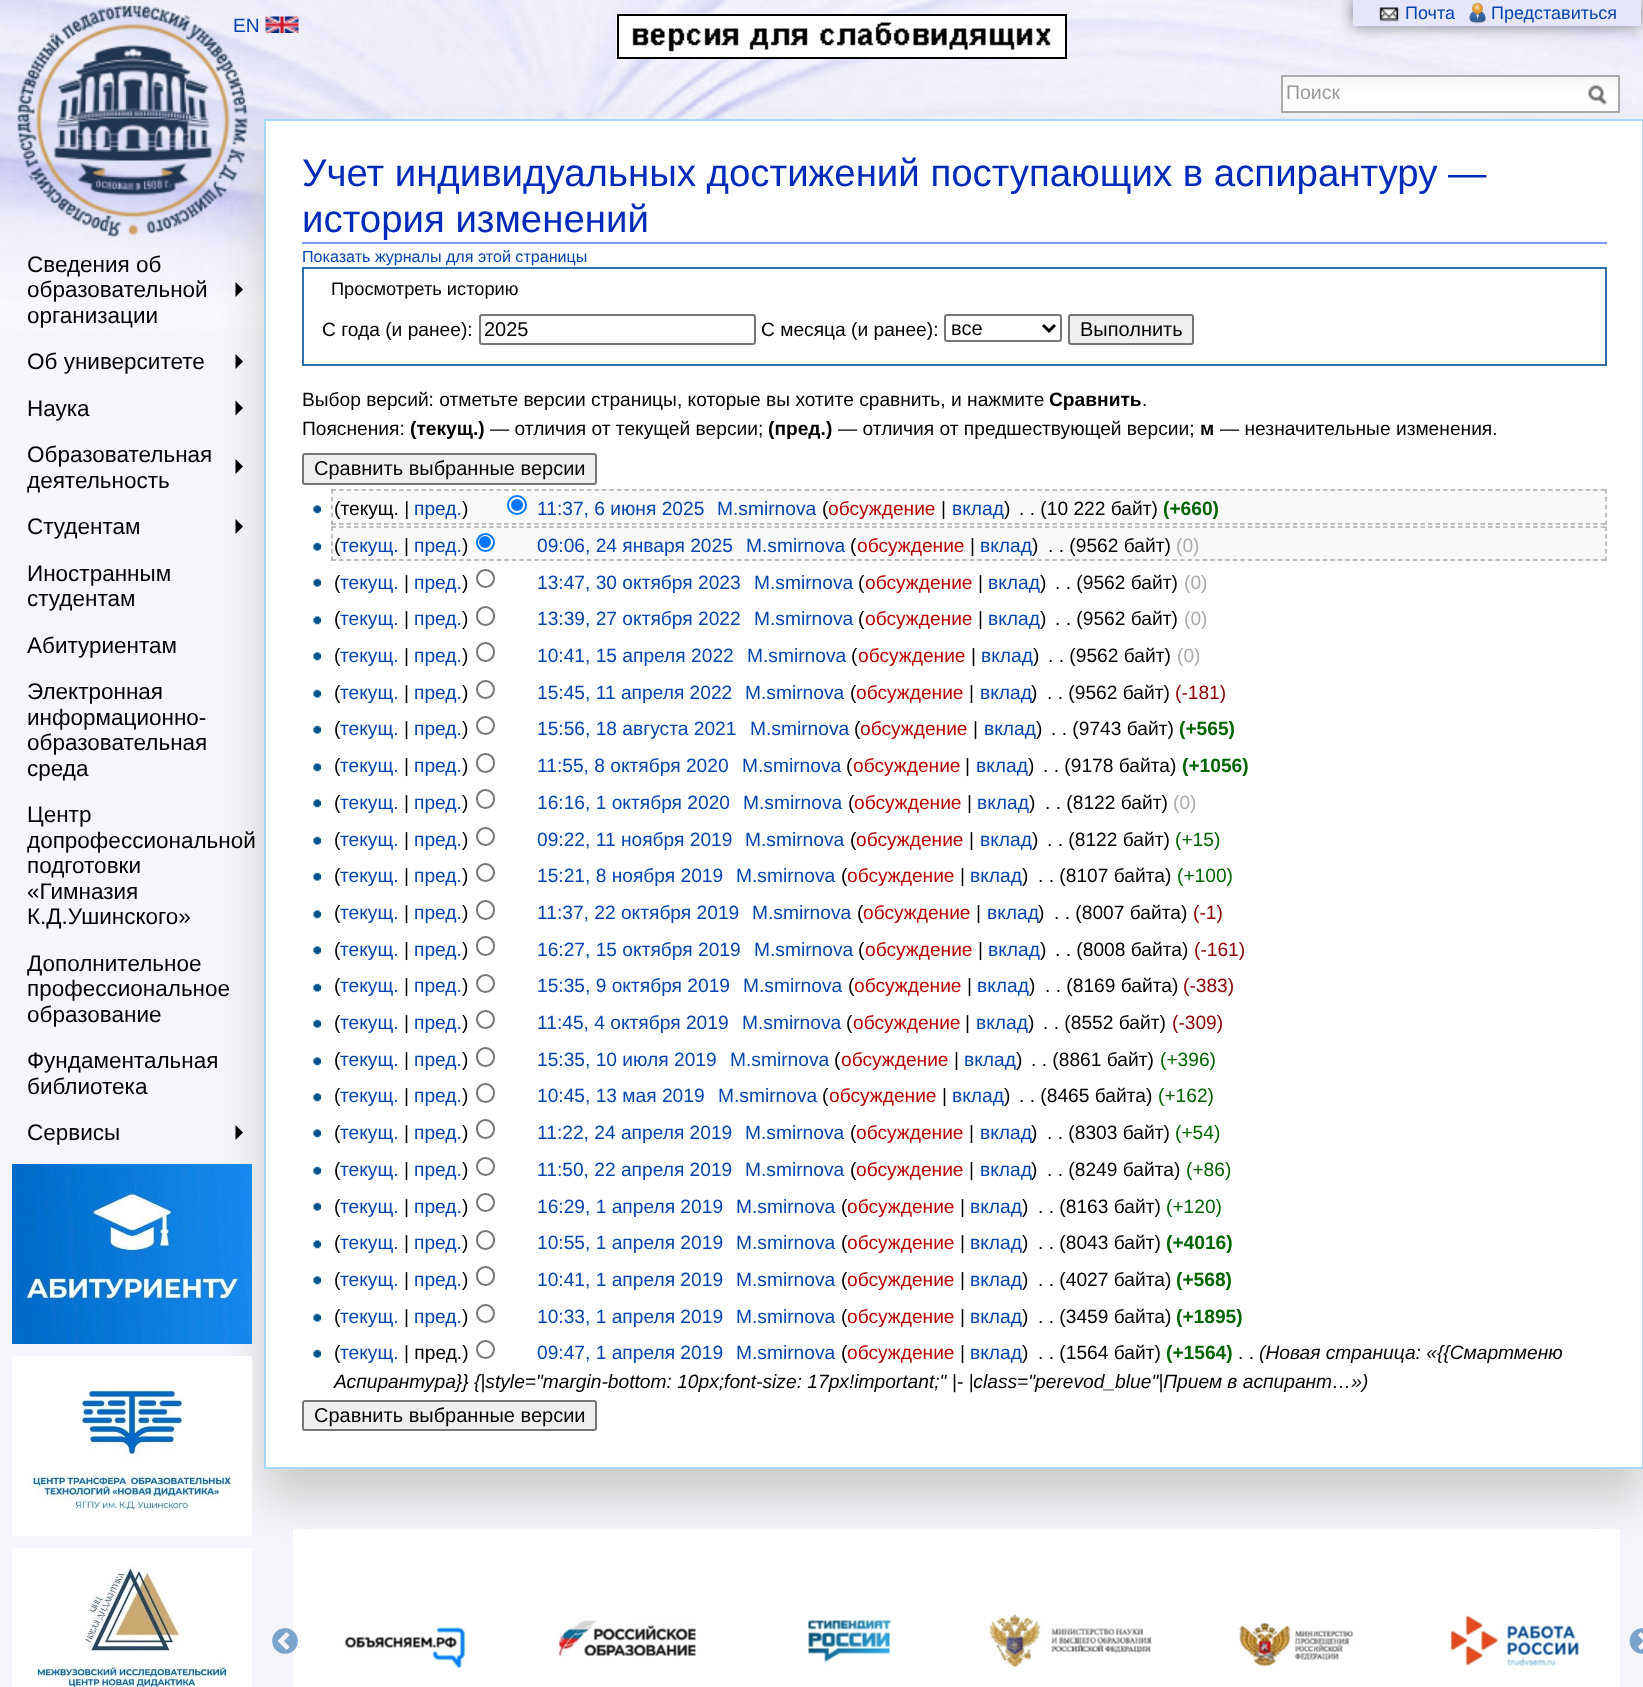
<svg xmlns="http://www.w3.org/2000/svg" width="1643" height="1687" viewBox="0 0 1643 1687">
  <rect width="100%" height="100%" fill="#f6f5fb"/>
  <image x="0" y="0" width="1643" height="330" href="img/1.png"/>
  <path d="M1353 0h288v26H1353z" fill="#00000080" filter="blur(7.5px)"/>
  <path d="M1353 0h288v26H1353z" fill="#e6e6fa"/>
  <image x="1379" y="7" width="20" height="15" href="img/2.png"/>
  <image x="1469" y="3" width="17" height="21" href="img/3.png"/>
  <path d="M264 149h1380v1350H264z" fill="#ccc" filter="blur(22.5px)"/>
  <path d="M1283 89h335v22H1283z" fill="#fff"/>
  <image x="1283" y="77" width="335" height="12" href="img/4.png"/>
  <path d="M1282 76h337v36H1282z" fill="none" stroke="#aaa" stroke-width="2"/>
  <image x="1588" y="85" width="19" height="20" href="img/5.png"/>
  <image x="17" y="5" width="231" height="232" href="img/6.png"/>
  <path d="M235.5 297V282L243 289.5Z" fill="#000"/>
  <path d="M235.5 369V354L243 361.5Z" fill="#000"/>
  <path d="M235.5 415.5V400.5L243 408Z" fill="#000"/>
  <path d="M235.5 474V459L243 466.5Z" fill="#000"/>
  <path d="M235.5 534V519L243 526.5Z" fill="#000"/>
  <path d="M235.5 1140V1125L243 1132.5Z" fill="#000"/>
  <image x="12" y="1164" width="240" height="180" href="img/7.png"/>
  <image x="12" y="1356" width="240" height="180" href="img/8.png"/>
  <image x="12" y="1548" width="240" height="139" href="img/9.png"/>
  <image x="265" y="16" width="34" height="17" href="img/10.png"/>
  <path d="M265 120h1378v1348H265z" fill="#fff" stroke="#a7d7f9" stroke-width="2"/>
  <image x="616" y="13" width="451" height="46" href="img/11.png"/>
  <path d="M618 15h448v43H618z" fill="none" stroke="#000" stroke-width="2"/>
  <path d="M302 242h1305v2H302z" fill="#7a98ff"/>
  <path d="M303 268h1303v97H303z" fill="none" stroke="#2f6fab" stroke-width="2"/>
  <rect x="480" y="315" width="275" height="29" rx="2" fill="none" stroke="#767676" stroke-width="2"/>
  <rect x="945" y="315" width="116" height="26" rx="2" fill="none" stroke="#767676" stroke-width="2"/>
  <path d="M1043 325L1049 331L1055 325" fill="none" stroke="#000" stroke-width="3"/>
  <rect x="1069" y="315" width="124" height="29" rx="2" fill="#efefef" stroke="#767676" stroke-width="2"/>
  <rect x="303" y="454" width="293" height="30" rx="2" fill="#efefef" stroke="#767676" stroke-width="2"/>
  <path d="M332 489h1275v36H332z" fill="#f9f9f9"/>
  <path d="M331.5 490H1606.5" fill="none" stroke="#aaa" stroke-width="1.5" stroke-dasharray="4.5 3.01"/>
  <path d="M1606 489V525" fill="none" stroke="#aaa" stroke-width="1.5" stroke-dasharray="4.5 3.38"/>
  <path d="M331.5 524H1606.5" fill="none" stroke="#aaa" stroke-width="1.5" stroke-dasharray="4.5 3.01"/>
  <path d="M332 489V525" fill="none" stroke="#aaa" stroke-width="1.5" stroke-dasharray="4.5 3.38"/>
  <image x="313" y="505" width="8" height="9" href="img/12.png"/>
  <circle cx="517" cy="505" r="9" fill="#fff" stroke="#0075ff" stroke-width="2"/>
  <circle cx="517" cy="505" r="6" fill="#0075ff"/>
  <path d="M332 527h1275v34H332z" fill="#f9f9f9"/>
  <path d="M331.5 527H1606.5" fill="none" stroke="#aaa" stroke-width="1.5" stroke-dasharray="4.5 3.01"/>
  <path d="M1606 526.5V561" fill="none" stroke="#aaa" stroke-width="1.5" stroke-dasharray="4.5 3"/>
  <path d="M331.5 560H1606.5" fill="none" stroke="#aaa" stroke-width="1.5" stroke-dasharray="4.5 3.01"/>
  <path d="M332 526.5V561" fill="none" stroke="#aaa" stroke-width="1.5" stroke-dasharray="4.5 3"/>
  <image x="313" y="542" width="8" height="9" href="img/13.png"/>
  <circle cx="485.5" cy="542.5" r="8.5" fill="#fff" stroke="#0075ff" stroke-width="2"/>
  <circle cx="485" cy="542" r="6" fill="#0075ff"/>
  <image x="313" y="578" width="8" height="9" href="img/13.png"/>
  <circle cx="485.5" cy="578.5" r="8.5" fill="none" stroke="#767676" stroke-width="2"/>
  <image x="313" y="616" width="8" height="9" href="img/12.png"/>
  <rect x="477" y="607" width="17" height="18" rx="8.5" fill="none" stroke="#767676" stroke-width="2"/>
  <image x="313" y="652" width="8" height="9" href="img/12.png"/>
  <rect x="477" y="643" width="17" height="18" rx="8.5" fill="none" stroke="#767676" stroke-width="2"/>
  <image x="313" y="689" width="8" height="9" href="img/13.png"/>
  <circle cx="485.5" cy="689.5" r="8.5" fill="none" stroke="#767676" stroke-width="2"/>
  <image x="313" y="725" width="8" height="9" href="img/13.png"/>
  <circle cx="485.5" cy="725.5" r="8.5" fill="none" stroke="#767676" stroke-width="2"/>
  <image x="313" y="763" width="8" height="9" href="img/12.png"/>
  <rect x="477" y="754" width="17" height="18" rx="8.5" fill="none" stroke="#767676" stroke-width="2"/>
  <image x="313" y="799" width="8" height="9" href="img/12.png"/>
  <rect x="477" y="790" width="17" height="18" rx="8.5" fill="none" stroke="#767676" stroke-width="2"/>
  <image x="313" y="836" width="8" height="9" href="img/13.png"/>
  <circle cx="485.5" cy="836.5" r="8.5" fill="none" stroke="#767676" stroke-width="2"/>
  <image x="313" y="872" width="8" height="9" href="img/13.png"/>
  <circle cx="485.5" cy="872.5" r="8.5" fill="none" stroke="#767676" stroke-width="2"/>
  <image x="313" y="910" width="8" height="9" href="img/12.png"/>
  <rect x="477" y="901" width="17" height="18" rx="8.5" fill="none" stroke="#767676" stroke-width="2"/>
  <image x="313" y="946" width="8" height="9" href="img/12.png"/>
  <rect x="477" y="937" width="17" height="18" rx="8.5" fill="none" stroke="#767676" stroke-width="2"/>
  <image x="313" y="983" width="8" height="9" href="img/13.png"/>
  <circle cx="485.5" cy="983.5" r="8.5" fill="none" stroke="#767676" stroke-width="2"/>
  <image x="313" y="1019" width="8" height="9" href="img/13.png"/>
  <circle cx="485.5" cy="1019.5" r="8.5" fill="none" stroke="#767676" stroke-width="2"/>
  <image x="313" y="1057" width="8" height="9" href="img/12.png"/>
  <rect x="477" y="1048" width="17" height="18" rx="8.5" fill="none" stroke="#767676" stroke-width="2"/>
  <image x="313" y="1093" width="8" height="9" href="img/12.png"/>
  <rect x="477" y="1084" width="17" height="18" rx="8.5" fill="none" stroke="#767676" stroke-width="2"/>
  <image x="313" y="1129" width="8" height="9" href="img/12.png"/>
  <rect x="477" y="1120" width="17" height="18" rx="8.5" fill="none" stroke="#767676" stroke-width="2"/>
  <image x="313" y="1166" width="8" height="9" href="img/13.png"/>
  <circle cx="485.5" cy="1166.5" r="8.5" fill="none" stroke="#767676" stroke-width="2"/>
  <image x="313" y="1202" width="8" height="9" href="img/13.png"/>
  <circle cx="485.5" cy="1202.5" r="8.5" fill="none" stroke="#767676" stroke-width="2"/>
  <image x="313" y="1240" width="8" height="9" href="img/12.png"/>
  <rect x="477" y="1231" width="17" height="18" rx="8.5" fill="none" stroke="#767676" stroke-width="2"/>
  <image x="313" y="1276" width="8" height="9" href="img/12.png"/>
  <rect x="477" y="1267" width="17" height="18" rx="8.5" fill="none" stroke="#767676" stroke-width="2"/>
  <image x="313" y="1313" width="8" height="9" href="img/13.png"/>
  <circle cx="485.5" cy="1313.5" r="8.5" fill="none" stroke="#767676" stroke-width="2"/>
  <image x="313" y="1349" width="8" height="9" href="img/13.png"/>
  <circle cx="485.5" cy="1349.5" r="8.5" fill="none" stroke="#767676" stroke-width="2"/>
  <rect x="303" y="1401" width="293" height="29" rx="2" fill="#efefef" stroke="#767676" stroke-width="2"/>
  <path d="M293 1529h3v158H293z" fill="#fff"/>
  <image x="296" y="1529" width="221" height="158" href="img/15.png"/>
  <image x="272" y="1628" width="26" height="26" href="img/14.png"/>
  <image x="517" y="1529" width="222" height="158" href="img/16.png"/>
  <image x="739" y="1529" width="222" height="158" href="img/17.png"/>
  <image x="961" y="1529" width="222" height="158" href="img/18.png"/>
  <image x="1183" y="1529" width="222" height="158" href="img/19.png"/>
  <image x="1405" y="1529" width="215" height="158" href="img/20.png"/>
  <image x="1629" y="1628" width="14" height="26" href="img/21.png"/>
  <g font-family="Liberation Sans" font-size="18" fill="#0645ad">
    <text x="1405" y="19">Почта</text>
    <text x="1491" y="19">Представиться</text>
  </g>
  <text x="1286" y="99" font-family="Liberation Sans" font-size="19.5" fill="#999">Поиск</text>
  <g font-family="Liberation Sans" font-size="22.5" fill="#000">
    <text x="27" y="272">Сведения об</text>
    <text x="27" y="297">образовательной</text>
    <text x="27" y="323">организации</text>
    <text x="27" y="369">Об университете</text>
    <text x="27" y="416">Наука</text>
    <text x="27" y="462">Образовательная</text>
    <text x="27" y="488">деятельность</text>
    <text x="27" y="534">Студентам</text>
    <text x="27" y="581">Иностранным</text>
    <text x="27" y="606">студентам</text>
    <text x="27" y="653">Абитуриентам</text>
    <text x="27" y="699">Электронная</text>
    <text x="27" y="725">информационно-</text>
    <text x="27" y="750">образовательная</text>
    <text x="27" y="776">среда</text>
    <text x="27" y="822">Центр</text>
    <text x="27" y="848">допрофессиональной</text>
    <text x="27" y="873">подготовки</text>
    <text x="27" y="899">«Гимназия</text>
    <text x="27" y="924">К.Д.Ушинского»</text>
    <text x="27" y="971">Дополнительное</text>
    <text x="27" y="996">профессиональное</text>
    <text x="27" y="1022">образование</text>
    <text x="27" y="1068">Фундаментальная</text>
    <text x="27" y="1094">библиотека</text>
    <text x="27" y="1140">Сервисы</text>
  </g>
  <text x="233" y="32" font-family="Liberation Sans" font-size="19.2" fill="#0645ad">EN</text>
  <g font-family="Liberation Sans" font-size="38.4" fill="#002bb8">
    <text x="302" y="186">Учет индивидуальных достижений поступающих в аспирантуру —</text>
    <text x="302" y="232">история изменений</text>
  </g>
  <text x="302" y="262" font-family="Liberation Sans" font-size="16.1" fill="#0645ad">Показать журналы для этой страницы</text>
  <text x="331" y="295" font-family="Liberation Sans" font-size="18.25" fill="#000">Просмотреть историю</text>
  <text x="322" y="336" font-family="Liberation Sans" font-size="19.2" fill="#000">С года (и ранее):</text>
  <text x="484" y="336" font-family="Liberation Sans" font-size="20" fill="#000">2025</text>
  <text x="761" y="336" font-family="Liberation Sans" font-size="19.2" fill="#000">С месяца (и ранее):</text>
  <g font-family="Liberation Sans" font-size="20" fill="#000">
    <text x="951" y="335">все</text>
    <text x="1080" y="336">Выполнить</text>
  </g>
  <text x="302" y="406" font-family="Liberation Sans" font-size="19.2" fill="#000">Выбор версий: отметьте версии страницы, которые вы хотите сравнить, и нажмите</text>
  <text x="1049" y="406" font-family="Liberation Sans" font-size="19.2" font-weight="bold" fill="#000">Сравнить</text>
  <g font-family="Liberation Sans" font-size="19.2" fill="#000">
    <text x="1142" y="406">.</text>
    <text x="302" y="435">Пояснения:</text>
  </g>
  <text x="410" y="435" font-family="Liberation Sans" font-size="19.2" font-weight="bold" fill="#000">(текущ.)</text>
  <text x="490" y="435" font-family="Liberation Sans" font-size="19.2" fill="#000">— отличия от текущей версии;</text>
  <text x="768" y="435" font-family="Liberation Sans" font-size="19.2" font-weight="bold" fill="#000">(пред.)</text>
  <text x="838" y="435" font-family="Liberation Sans" font-size="19.2" fill="#000">— отличия от предшествующей версии;</text>
  <text x="1200" y="435" font-family="Liberation Sans" font-size="19.2" font-weight="bold" fill="#000">м</text>
  <text x="1220" y="435" font-family="Liberation Sans" font-size="19.2" fill="#000">— незначительные изменения.</text>
  <text x="314" y="475" font-family="Liberation Sans" font-size="20" fill="#000">Сравнить выбранные версии</text>
  <text x="334" y="515" font-family="Liberation Sans" font-size="19.2" fill="#000">(текущ. |</text>
  <text x="414" y="515" font-family="Liberation Sans" font-size="19.2" fill="#0645ad">пред.</text>
  <text x="462" y="515" font-family="Liberation Sans" font-size="19.2" fill="#000">)</text>
  <g font-family="Liberation Sans" font-size="19.2" fill="#0645ad">
    <text x="537" y="515">11:37, 6 июня 2025</text>
    <text x="717" y="515">M.smirnova</text>
  </g>
  <text x="822" y="515" font-family="Liberation Sans" font-size="19.2" fill="#000">(</text>
  <text x="828" y="515" font-family="Liberation Sans" font-size="19.2" fill="#ba0000">обсуждение</text>
  <text x="941" y="515" font-family="Liberation Sans" font-size="19.2" fill="#000">|</text>
  <text x="952" y="515" font-family="Liberation Sans" font-size="19.2" fill="#0645ad">вклад</text>
  <g font-family="Liberation Sans" font-size="19.2" fill="#000">
    <text x="1004" y="515">)</text>
    <text x="1019" y="515">. . (10 222 байт)</text>
  </g>
  <text x="1163" y="515" font-family="Liberation Sans" font-size="19.2" font-weight="bold" fill="#006400">(+660)</text>
  <text x="334" y="552" font-family="Liberation Sans" font-size="19.2" fill="#000">(</text>
  <text x="340" y="552" font-family="Liberation Sans" font-size="19.2" fill="#0645ad">текущ.</text>
  <text x="404" y="552" font-family="Liberation Sans" font-size="19.2" fill="#000">|</text>
  <text x="414" y="552" font-family="Liberation Sans" font-size="19.2" fill="#0645ad">пред.</text>
  <text x="462" y="552" font-family="Liberation Sans" font-size="19.2" fill="#000">)</text>
  <g font-family="Liberation Sans" font-size="19.2" fill="#0645ad">
    <text x="537" y="552">09:06, 24 января 2025</text>
    <text x="746" y="552">M.smirnova</text>
  </g>
  <text x="850" y="552" font-family="Liberation Sans" font-size="19.2" fill="#000">(</text>
  <text x="857" y="552" font-family="Liberation Sans" font-size="19.2" fill="#ba0000">обсуждение</text>
  <text x="970" y="552" font-family="Liberation Sans" font-size="19.2" fill="#000">|</text>
  <text x="980" y="552" font-family="Liberation Sans" font-size="19.2" fill="#0645ad">вклад</text>
  <g font-family="Liberation Sans" font-size="19.2" fill="#000">
    <text x="1032" y="552">)</text>
    <text x="1048" y="552">. . (9562 байт)</text>
  </g>
  <text x="1176" y="552" font-family="Liberation Sans" font-size="19.2" fill="#aaa">(0)</text>
  <text x="334" y="589" font-family="Liberation Sans" font-size="19.2" fill="#000">(</text>
  <text x="340" y="589" font-family="Liberation Sans" font-size="19.2" fill="#0645ad">текущ.</text>
  <text x="404" y="589" font-family="Liberation Sans" font-size="19.2" fill="#000">|</text>
  <text x="414" y="589" font-family="Liberation Sans" font-size="19.2" fill="#0645ad">пред.</text>
  <text x="462" y="589" font-family="Liberation Sans" font-size="19.2" fill="#000">)</text>
  <g font-family="Liberation Sans" font-size="19.2" fill="#0645ad">
    <text x="537" y="589">13:47, 30 октября 2023</text>
    <text x="754" y="589">M.smirnova</text>
  </g>
  <text x="858" y="589" font-family="Liberation Sans" font-size="19.2" fill="#000">(</text>
  <text x="865" y="589" font-family="Liberation Sans" font-size="19.2" fill="#ba0000">обсуждение</text>
  <text x="978" y="589" font-family="Liberation Sans" font-size="19.2" fill="#000">|</text>
  <text x="988" y="589" font-family="Liberation Sans" font-size="19.2" fill="#0645ad">вклад</text>
  <g font-family="Liberation Sans" font-size="19.2" fill="#000">
    <text x="1040" y="589">)</text>
    <text x="1055" y="589">. . (9562 байт)</text>
  </g>
  <text x="1184" y="589" font-family="Liberation Sans" font-size="19.2" fill="#aaa">(0)</text>
  <text x="334" y="625" font-family="Liberation Sans" font-size="19.2" fill="#000">(</text>
  <text x="340" y="625" font-family="Liberation Sans" font-size="19.2" fill="#0645ad">текущ.</text>
  <text x="404" y="625" font-family="Liberation Sans" font-size="19.2" fill="#000">|</text>
  <text x="414" y="625" font-family="Liberation Sans" font-size="19.2" fill="#0645ad">пред.</text>
  <text x="462" y="625" font-family="Liberation Sans" font-size="19.2" fill="#000">)</text>
  <g font-family="Liberation Sans" font-size="19.2" fill="#0645ad">
    <text x="537" y="625">13:39, 27 октября 2022</text>
    <text x="754" y="625">M.smirnova</text>
  </g>
  <text x="858" y="625" font-family="Liberation Sans" font-size="19.2" fill="#000">(</text>
  <text x="865" y="625" font-family="Liberation Sans" font-size="19.2" fill="#ba0000">обсуждение</text>
  <text x="978" y="625" font-family="Liberation Sans" font-size="19.2" fill="#000">|</text>
  <text x="988" y="625" font-family="Liberation Sans" font-size="19.2" fill="#0645ad">вклад</text>
  <g font-family="Liberation Sans" font-size="19.2" fill="#000">
    <text x="1040" y="625">)</text>
    <text x="1055" y="625">. . (9562 байт)</text>
  </g>
  <text x="1184" y="625" font-family="Liberation Sans" font-size="19.2" fill="#aaa">(0)</text>
  <text x="334" y="662" font-family="Liberation Sans" font-size="19.2" fill="#000">(</text>
  <text x="340" y="662" font-family="Liberation Sans" font-size="19.2" fill="#0645ad">текущ.</text>
  <text x="404" y="662" font-family="Liberation Sans" font-size="19.2" fill="#000">|</text>
  <text x="414" y="662" font-family="Liberation Sans" font-size="19.2" fill="#0645ad">пред.</text>
  <text x="462" y="662" font-family="Liberation Sans" font-size="19.2" fill="#000">)</text>
  <g font-family="Liberation Sans" font-size="19.2" fill="#0645ad">
    <text x="537" y="662">10:41, 15 апреля 2022</text>
    <text x="747" y="662">M.smirnova</text>
  </g>
  <text x="851" y="662" font-family="Liberation Sans" font-size="19.2" fill="#000">(</text>
  <text x="858" y="662" font-family="Liberation Sans" font-size="19.2" fill="#ba0000">обсуждение</text>
  <text x="971" y="662" font-family="Liberation Sans" font-size="19.2" fill="#000">|</text>
  <text x="981" y="662" font-family="Liberation Sans" font-size="19.2" fill="#0645ad">вклад</text>
  <g font-family="Liberation Sans" font-size="19.2" fill="#000">
    <text x="1033" y="662">)</text>
    <text x="1048" y="662">. . (9562 байт)</text>
  </g>
  <text x="1177" y="662" font-family="Liberation Sans" font-size="19.2" fill="#aaa">(0)</text>
  <text x="334" y="699" font-family="Liberation Sans" font-size="19.2" fill="#000">(</text>
  <text x="340" y="699" font-family="Liberation Sans" font-size="19.2" fill="#0645ad">текущ.</text>
  <text x="404" y="699" font-family="Liberation Sans" font-size="19.2" fill="#000">|</text>
  <text x="414" y="699" font-family="Liberation Sans" font-size="19.2" fill="#0645ad">пред.</text>
  <text x="462" y="699" font-family="Liberation Sans" font-size="19.2" fill="#000">)</text>
  <g font-family="Liberation Sans" font-size="19.2" fill="#0645ad">
    <text x="537" y="699">15:45, 11 апреля 2022</text>
    <text x="745" y="699">M.smirnova</text>
  </g>
  <text x="850" y="699" font-family="Liberation Sans" font-size="19.2" fill="#000">(</text>
  <text x="856" y="699" font-family="Liberation Sans" font-size="19.2" fill="#ba0000">обсуждение</text>
  <text x="969" y="699" font-family="Liberation Sans" font-size="19.2" fill="#000">|</text>
  <text x="980" y="699" font-family="Liberation Sans" font-size="19.2" fill="#0645ad">вклад</text>
  <g font-family="Liberation Sans" font-size="19.2" fill="#000">
    <text x="1031" y="699">)</text>
    <text x="1047" y="699">. . (9562 байт)</text>
  </g>
  <text x="1175" y="699" font-family="Liberation Sans" font-size="19.2" fill="#8b0000">(-181)</text>
  <text x="334" y="735" font-family="Liberation Sans" font-size="19.2" fill="#000">(</text>
  <text x="340" y="735" font-family="Liberation Sans" font-size="19.2" fill="#0645ad">текущ.</text>
  <text x="404" y="735" font-family="Liberation Sans" font-size="19.2" fill="#000">|</text>
  <text x="414" y="735" font-family="Liberation Sans" font-size="19.2" fill="#0645ad">пред.</text>
  <text x="462" y="735" font-family="Liberation Sans" font-size="19.2" fill="#000">)</text>
  <g font-family="Liberation Sans" font-size="19.2" fill="#0645ad">
    <text x="537" y="735">15:56, 18 августа 2021</text>
    <text x="750" y="735">M.smirnova</text>
  </g>
  <text x="854" y="735" font-family="Liberation Sans" font-size="19.2" fill="#000">(</text>
  <text x="860" y="735" font-family="Liberation Sans" font-size="19.2" fill="#ba0000">обсуждение</text>
  <text x="973" y="735" font-family="Liberation Sans" font-size="19.2" fill="#000">|</text>
  <text x="984" y="735" font-family="Liberation Sans" font-size="19.2" fill="#0645ad">вклад</text>
  <g font-family="Liberation Sans" font-size="19.2" fill="#000">
    <text x="1036" y="735">)</text>
    <text x="1051" y="735">. . (9743 байт)</text>
  </g>
  <text x="1179" y="735" font-family="Liberation Sans" font-size="19.2" font-weight="bold" fill="#006400">(+565)</text>
  <text x="334" y="772" font-family="Liberation Sans" font-size="19.2" fill="#000">(</text>
  <text x="340" y="772" font-family="Liberation Sans" font-size="19.2" fill="#0645ad">текущ.</text>
  <text x="404" y="772" font-family="Liberation Sans" font-size="19.2" fill="#000">|</text>
  <text x="414" y="772" font-family="Liberation Sans" font-size="19.2" fill="#0645ad">пред.</text>
  <text x="462" y="772" font-family="Liberation Sans" font-size="19.2" fill="#000">)</text>
  <g font-family="Liberation Sans" font-size="19.2" fill="#0645ad">
    <text x="537" y="772">11:55, 8 октября 2020</text>
    <text x="742" y="772">M.smirnova</text>
  </g>
  <text x="846" y="772" font-family="Liberation Sans" font-size="19.2" fill="#000">(</text>
  <text x="853" y="772" font-family="Liberation Sans" font-size="19.2" fill="#ba0000">обсуждение</text>
  <text x="965" y="772" font-family="Liberation Sans" font-size="19.2" fill="#000">|</text>
  <text x="976" y="772" font-family="Liberation Sans" font-size="19.2" fill="#0645ad">вклад</text>
  <g font-family="Liberation Sans" font-size="19.2" fill="#000">
    <text x="1028" y="772">)</text>
    <text x="1043" y="772">. . (9178 байта)</text>
  </g>
  <text x="1182" y="772" font-family="Liberation Sans" font-size="19.2" font-weight="bold" fill="#006400">(+1056)</text>
  <text x="334" y="809" font-family="Liberation Sans" font-size="19.2" fill="#000">(</text>
  <text x="340" y="809" font-family="Liberation Sans" font-size="19.2" fill="#0645ad">текущ.</text>
  <text x="404" y="809" font-family="Liberation Sans" font-size="19.2" fill="#000">|</text>
  <text x="414" y="809" font-family="Liberation Sans" font-size="19.2" fill="#0645ad">пред.</text>
  <text x="462" y="809" font-family="Liberation Sans" font-size="19.2" fill="#000">)</text>
  <g font-family="Liberation Sans" font-size="19.2" fill="#0645ad">
    <text x="537" y="809">16:16, 1 октября 2020</text>
    <text x="743" y="809">M.smirnova</text>
  </g>
  <text x="848" y="809" font-family="Liberation Sans" font-size="19.2" fill="#000">(</text>
  <text x="854" y="809" font-family="Liberation Sans" font-size="19.2" fill="#ba0000">обсуждение</text>
  <text x="967" y="809" font-family="Liberation Sans" font-size="19.2" fill="#000">|</text>
  <text x="977" y="809" font-family="Liberation Sans" font-size="19.2" fill="#0645ad">вклад</text>
  <g font-family="Liberation Sans" font-size="19.2" fill="#000">
    <text x="1029" y="809">)</text>
    <text x="1045" y="809">. . (8122 байт)</text>
  </g>
  <text x="1173" y="809" font-family="Liberation Sans" font-size="19.2" fill="#aaa">(0)</text>
  <text x="334" y="846" font-family="Liberation Sans" font-size="19.2" fill="#000">(</text>
  <text x="340" y="846" font-family="Liberation Sans" font-size="19.2" fill="#0645ad">текущ.</text>
  <text x="404" y="846" font-family="Liberation Sans" font-size="19.2" fill="#000">|</text>
  <text x="414" y="846" font-family="Liberation Sans" font-size="19.2" fill="#0645ad">пред.</text>
  <text x="462" y="846" font-family="Liberation Sans" font-size="19.2" fill="#000">)</text>
  <g font-family="Liberation Sans" font-size="19.2" fill="#0645ad">
    <text x="537" y="846">09:22, 11 ноября 2019</text>
    <text x="745" y="846">M.smirnova</text>
  </g>
  <text x="850" y="846" font-family="Liberation Sans" font-size="19.2" fill="#000">(</text>
  <text x="856" y="846" font-family="Liberation Sans" font-size="19.2" fill="#ba0000">обсуждение</text>
  <text x="969" y="846" font-family="Liberation Sans" font-size="19.2" fill="#000">|</text>
  <text x="980" y="846" font-family="Liberation Sans" font-size="19.2" fill="#0645ad">вклад</text>
  <g font-family="Liberation Sans" font-size="19.2" fill="#000">
    <text x="1032" y="846">)</text>
    <text x="1047" y="846">. . (8122 байт)</text>
  </g>
  <text x="1175" y="846" font-family="Liberation Sans" font-size="19.2" fill="#006400">(+15)</text>
  <text x="334" y="882" font-family="Liberation Sans" font-size="19.2" fill="#000">(</text>
  <text x="340" y="882" font-family="Liberation Sans" font-size="19.2" fill="#0645ad">текущ.</text>
  <text x="404" y="882" font-family="Liberation Sans" font-size="19.2" fill="#000">|</text>
  <text x="414" y="882" font-family="Liberation Sans" font-size="19.2" fill="#0645ad">пред.</text>
  <text x="462" y="882" font-family="Liberation Sans" font-size="19.2" fill="#000">)</text>
  <g font-family="Liberation Sans" font-size="19.2" fill="#0645ad">
    <text x="537" y="882">15:21, 8 ноября 2019</text>
    <text x="736" y="882">M.smirnova</text>
  </g>
  <text x="841" y="882" font-family="Liberation Sans" font-size="19.2" fill="#000">(</text>
  <text x="847" y="882" font-family="Liberation Sans" font-size="19.2" fill="#ba0000">обсуждение</text>
  <text x="960" y="882" font-family="Liberation Sans" font-size="19.2" fill="#000">|</text>
  <text x="970" y="882" font-family="Liberation Sans" font-size="19.2" fill="#0645ad">вклад</text>
  <g font-family="Liberation Sans" font-size="19.2" fill="#000">
    <text x="1022" y="882">)</text>
    <text x="1038" y="882">. . (8107 байта)</text>
  </g>
  <text x="1177" y="882" font-family="Liberation Sans" font-size="19.2" fill="#006400">(+100)</text>
  <text x="334" y="919" font-family="Liberation Sans" font-size="19.2" fill="#000">(</text>
  <text x="340" y="919" font-family="Liberation Sans" font-size="19.2" fill="#0645ad">текущ.</text>
  <text x="404" y="919" font-family="Liberation Sans" font-size="19.2" fill="#000">|</text>
  <text x="414" y="919" font-family="Liberation Sans" font-size="19.2" fill="#0645ad">пред.</text>
  <text x="462" y="919" font-family="Liberation Sans" font-size="19.2" fill="#000">)</text>
  <g font-family="Liberation Sans" font-size="19.2" fill="#0645ad">
    <text x="537" y="919">11:37, 22 октября 2019</text>
    <text x="752" y="919">M.smirnova</text>
  </g>
  <text x="857" y="919" font-family="Liberation Sans" font-size="19.2" fill="#000">(</text>
  <text x="863" y="919" font-family="Liberation Sans" font-size="19.2" fill="#ba0000">обсуждение</text>
  <text x="976" y="919" font-family="Liberation Sans" font-size="19.2" fill="#000">|</text>
  <text x="987" y="919" font-family="Liberation Sans" font-size="19.2" fill="#0645ad">вклад</text>
  <g font-family="Liberation Sans" font-size="19.2" fill="#000">
    <text x="1038" y="919">)</text>
    <text x="1054" y="919">. . (8007 байта)</text>
  </g>
  <text x="1193" y="919" font-family="Liberation Sans" font-size="19.2" fill="#8b0000">(-1)</text>
  <text x="334" y="956" font-family="Liberation Sans" font-size="19.2" fill="#000">(</text>
  <text x="340" y="956" font-family="Liberation Sans" font-size="19.2" fill="#0645ad">текущ.</text>
  <text x="404" y="956" font-family="Liberation Sans" font-size="19.2" fill="#000">|</text>
  <text x="414" y="956" font-family="Liberation Sans" font-size="19.2" fill="#0645ad">пред.</text>
  <text x="462" y="956" font-family="Liberation Sans" font-size="19.2" fill="#000">)</text>
  <g font-family="Liberation Sans" font-size="19.2" fill="#0645ad">
    <text x="537" y="956">16:27, 15 октября 2019</text>
    <text x="754" y="956">M.smirnova</text>
  </g>
  <text x="858" y="956" font-family="Liberation Sans" font-size="19.2" fill="#000">(</text>
  <text x="865" y="956" font-family="Liberation Sans" font-size="19.2" fill="#ba0000">обсуждение</text>
  <text x="978" y="956" font-family="Liberation Sans" font-size="19.2" fill="#000">|</text>
  <text x="988" y="956" font-family="Liberation Sans" font-size="19.2" fill="#0645ad">вклад</text>
  <g font-family="Liberation Sans" font-size="19.2" fill="#000">
    <text x="1040" y="956">)</text>
    <text x="1055" y="956">. . (8008 байта)</text>
  </g>
  <text x="1194" y="956" font-family="Liberation Sans" font-size="19.2" fill="#8b0000">(-161)</text>
  <text x="334" y="992" font-family="Liberation Sans" font-size="19.2" fill="#000">(</text>
  <text x="340" y="992" font-family="Liberation Sans" font-size="19.2" fill="#0645ad">текущ.</text>
  <text x="404" y="992" font-family="Liberation Sans" font-size="19.2" fill="#000">|</text>
  <text x="414" y="992" font-family="Liberation Sans" font-size="19.2" fill="#0645ad">пред.</text>
  <text x="462" y="992" font-family="Liberation Sans" font-size="19.2" fill="#000">)</text>
  <g font-family="Liberation Sans" font-size="19.2" fill="#0645ad">
    <text x="537" y="992">15:35, 9 октября 2019</text>
    <text x="743" y="992">M.smirnova</text>
  </g>
  <text x="848" y="992" font-family="Liberation Sans" font-size="19.2" fill="#000">(</text>
  <text x="854" y="992" font-family="Liberation Sans" font-size="19.2" fill="#ba0000">обсуждение</text>
  <text x="967" y="992" font-family="Liberation Sans" font-size="19.2" fill="#000">|</text>
  <text x="977" y="992" font-family="Liberation Sans" font-size="19.2" fill="#0645ad">вклад</text>
  <g font-family="Liberation Sans" font-size="19.2" fill="#000">
    <text x="1029" y="992">)</text>
    <text x="1045" y="992">. . (8169 байта)</text>
  </g>
  <text x="1183" y="992" font-family="Liberation Sans" font-size="19.2" fill="#8b0000">(-383)</text>
  <text x="334" y="1029" font-family="Liberation Sans" font-size="19.2" fill="#000">(</text>
  <text x="340" y="1029" font-family="Liberation Sans" font-size="19.2" fill="#0645ad">текущ.</text>
  <text x="404" y="1029" font-family="Liberation Sans" font-size="19.2" fill="#000">|</text>
  <text x="414" y="1029" font-family="Liberation Sans" font-size="19.2" fill="#0645ad">пред.</text>
  <text x="462" y="1029" font-family="Liberation Sans" font-size="19.2" fill="#000">)</text>
  <g font-family="Liberation Sans" font-size="19.2" fill="#0645ad">
    <text x="537" y="1029">11:45, 4 октября 2019</text>
    <text x="742" y="1029">M.smirnova</text>
  </g>
  <text x="846" y="1029" font-family="Liberation Sans" font-size="19.2" fill="#000">(</text>
  <text x="853" y="1029" font-family="Liberation Sans" font-size="19.2" fill="#ba0000">обсуждение</text>
  <text x="965" y="1029" font-family="Liberation Sans" font-size="19.2" fill="#000">|</text>
  <text x="976" y="1029" font-family="Liberation Sans" font-size="19.2" fill="#0645ad">вклад</text>
  <g font-family="Liberation Sans" font-size="19.2" fill="#000">
    <text x="1028" y="1029">)</text>
    <text x="1043" y="1029">. . (8552 байт)</text>
  </g>
  <text x="1172" y="1029" font-family="Liberation Sans" font-size="19.2" fill="#8b0000">(-309)</text>
  <text x="334" y="1066" font-family="Liberation Sans" font-size="19.2" fill="#000">(</text>
  <text x="340" y="1066" font-family="Liberation Sans" font-size="19.2" fill="#0645ad">текущ.</text>
  <text x="404" y="1066" font-family="Liberation Sans" font-size="19.2" fill="#000">|</text>
  <text x="414" y="1066" font-family="Liberation Sans" font-size="19.2" fill="#0645ad">пред.</text>
  <text x="462" y="1066" font-family="Liberation Sans" font-size="19.2" fill="#000">)</text>
  <g font-family="Liberation Sans" font-size="19.2" fill="#0645ad">
    <text x="537" y="1066">15:35, 10 июля 2019</text>
    <text x="730" y="1066">M.smirnova</text>
  </g>
  <text x="834" y="1066" font-family="Liberation Sans" font-size="19.2" fill="#000">(</text>
  <text x="841" y="1066" font-family="Liberation Sans" font-size="19.2" fill="#ba0000">обсуждение</text>
  <text x="954" y="1066" font-family="Liberation Sans" font-size="19.2" fill="#000">|</text>
  <text x="964" y="1066" font-family="Liberation Sans" font-size="19.2" fill="#0645ad">вклад</text>
  <g font-family="Liberation Sans" font-size="19.2" fill="#000">
    <text x="1016" y="1066">)</text>
    <text x="1031" y="1066">. . (8861 байт)</text>
  </g>
  <text x="1160" y="1066" font-family="Liberation Sans" font-size="19.2" fill="#006400">(+396)</text>
  <text x="334" y="1102" font-family="Liberation Sans" font-size="19.2" fill="#000">(</text>
  <text x="340" y="1102" font-family="Liberation Sans" font-size="19.2" fill="#0645ad">текущ.</text>
  <text x="404" y="1102" font-family="Liberation Sans" font-size="19.2" fill="#000">|</text>
  <text x="414" y="1102" font-family="Liberation Sans" font-size="19.2" fill="#0645ad">пред.</text>
  <text x="462" y="1102" font-family="Liberation Sans" font-size="19.2" fill="#000">)</text>
  <g font-family="Liberation Sans" font-size="19.2" fill="#0645ad">
    <text x="537" y="1102">10:45, 13 мая 2019</text>
    <text x="718" y="1102">M.smirnova</text>
  </g>
  <text x="822" y="1102" font-family="Liberation Sans" font-size="19.2" fill="#000">(</text>
  <text x="829" y="1102" font-family="Liberation Sans" font-size="19.2" fill="#ba0000">обсуждение</text>
  <text x="942" y="1102" font-family="Liberation Sans" font-size="19.2" fill="#000">|</text>
  <text x="952" y="1102" font-family="Liberation Sans" font-size="19.2" fill="#0645ad">вклад</text>
  <g font-family="Liberation Sans" font-size="19.2" fill="#000">
    <text x="1004" y="1102">)</text>
    <text x="1019" y="1102">. . (8465 байта)</text>
  </g>
  <text x="1158" y="1102" font-family="Liberation Sans" font-size="19.2" fill="#006400">(+162)</text>
  <text x="334" y="1139" font-family="Liberation Sans" font-size="19.2" fill="#000">(</text>
  <text x="340" y="1139" font-family="Liberation Sans" font-size="19.2" fill="#0645ad">текущ.</text>
  <text x="404" y="1139" font-family="Liberation Sans" font-size="19.2" fill="#000">|</text>
  <text x="414" y="1139" font-family="Liberation Sans" font-size="19.2" fill="#0645ad">пред.</text>
  <text x="462" y="1139" font-family="Liberation Sans" font-size="19.2" fill="#000">)</text>
  <g font-family="Liberation Sans" font-size="19.2" fill="#0645ad">
    <text x="537" y="1139">11:22, 24 апреля 2019</text>
    <text x="745" y="1139">M.smirnova</text>
  </g>
  <text x="850" y="1139" font-family="Liberation Sans" font-size="19.2" fill="#000">(</text>
  <text x="856" y="1139" font-family="Liberation Sans" font-size="19.2" fill="#ba0000">обсуждение</text>
  <text x="969" y="1139" font-family="Liberation Sans" font-size="19.2" fill="#000">|</text>
  <text x="980" y="1139" font-family="Liberation Sans" font-size="19.2" fill="#0645ad">вклад</text>
  <g font-family="Liberation Sans" font-size="19.2" fill="#000">
    <text x="1031" y="1139">)</text>
    <text x="1047" y="1139">. . (8303 байт)</text>
  </g>
  <text x="1175" y="1139" font-family="Liberation Sans" font-size="19.2" fill="#006400">(+54)</text>
  <text x="334" y="1176" font-family="Liberation Sans" font-size="19.2" fill="#000">(</text>
  <text x="340" y="1176" font-family="Liberation Sans" font-size="19.2" fill="#0645ad">текущ.</text>
  <text x="404" y="1176" font-family="Liberation Sans" font-size="19.2" fill="#000">|</text>
  <text x="414" y="1176" font-family="Liberation Sans" font-size="19.2" fill="#0645ad">пред.</text>
  <text x="462" y="1176" font-family="Liberation Sans" font-size="19.2" fill="#000">)</text>
  <g font-family="Liberation Sans" font-size="19.2" fill="#0645ad">
    <text x="537" y="1176">11:50, 22 апреля 2019</text>
    <text x="745" y="1176">M.smirnova</text>
  </g>
  <text x="850" y="1176" font-family="Liberation Sans" font-size="19.2" fill="#000">(</text>
  <text x="856" y="1176" font-family="Liberation Sans" font-size="19.2" fill="#ba0000">обсуждение</text>
  <text x="969" y="1176" font-family="Liberation Sans" font-size="19.2" fill="#000">|</text>
  <text x="980" y="1176" font-family="Liberation Sans" font-size="19.2" fill="#0645ad">вклад</text>
  <g font-family="Liberation Sans" font-size="19.2" fill="#000">
    <text x="1031" y="1176">)</text>
    <text x="1047" y="1176">. . (8249 байта)</text>
  </g>
  <text x="1186" y="1176" font-family="Liberation Sans" font-size="19.2" fill="#006400">(+86)</text>
  <text x="334" y="1213" font-family="Liberation Sans" font-size="19.2" fill="#000">(</text>
  <text x="340" y="1213" font-family="Liberation Sans" font-size="19.2" fill="#0645ad">текущ.</text>
  <text x="404" y="1213" font-family="Liberation Sans" font-size="19.2" fill="#000">|</text>
  <text x="414" y="1213" font-family="Liberation Sans" font-size="19.2" fill="#0645ad">пред.</text>
  <text x="462" y="1213" font-family="Liberation Sans" font-size="19.2" fill="#000">)</text>
  <g font-family="Liberation Sans" font-size="19.2" fill="#0645ad">
    <text x="537" y="1213">16:29, 1 апреля 2019</text>
    <text x="736" y="1213">M.smirnova</text>
  </g>
  <text x="841" y="1213" font-family="Liberation Sans" font-size="19.2" fill="#000">(</text>
  <text x="847" y="1213" font-family="Liberation Sans" font-size="19.2" fill="#ba0000">обсуждение</text>
  <text x="960" y="1213" font-family="Liberation Sans" font-size="19.2" fill="#000">|</text>
  <text x="970" y="1213" font-family="Liberation Sans" font-size="19.2" fill="#0645ad">вклад</text>
  <g font-family="Liberation Sans" font-size="19.2" fill="#000">
    <text x="1022" y="1213">)</text>
    <text x="1038" y="1213">. . (8163 байт)</text>
  </g>
  <text x="1166" y="1213" font-family="Liberation Sans" font-size="19.2" fill="#006400">(+120)</text>
  <text x="334" y="1249" font-family="Liberation Sans" font-size="19.2" fill="#000">(</text>
  <text x="340" y="1249" font-family="Liberation Sans" font-size="19.2" fill="#0645ad">текущ.</text>
  <text x="404" y="1249" font-family="Liberation Sans" font-size="19.2" fill="#000">|</text>
  <text x="414" y="1249" font-family="Liberation Sans" font-size="19.2" fill="#0645ad">пред.</text>
  <text x="462" y="1249" font-family="Liberation Sans" font-size="19.2" fill="#000">)</text>
  <g font-family="Liberation Sans" font-size="19.2" fill="#0645ad">
    <text x="537" y="1249">10:55, 1 апреля 2019</text>
    <text x="736" y="1249">M.smirnova</text>
  </g>
  <text x="841" y="1249" font-family="Liberation Sans" font-size="19.2" fill="#000">(</text>
  <text x="847" y="1249" font-family="Liberation Sans" font-size="19.2" fill="#ba0000">обсуждение</text>
  <text x="960" y="1249" font-family="Liberation Sans" font-size="19.2" fill="#000">|</text>
  <text x="970" y="1249" font-family="Liberation Sans" font-size="19.2" fill="#0645ad">вклад</text>
  <g font-family="Liberation Sans" font-size="19.2" fill="#000">
    <text x="1022" y="1249">)</text>
    <text x="1038" y="1249">. . (8043 байт)</text>
  </g>
  <text x="1166" y="1249" font-family="Liberation Sans" font-size="19.2" font-weight="bold" fill="#006400">(+4016)</text>
  <text x="334" y="1286" font-family="Liberation Sans" font-size="19.2" fill="#000">(</text>
  <text x="340" y="1286" font-family="Liberation Sans" font-size="19.2" fill="#0645ad">текущ.</text>
  <text x="404" y="1286" font-family="Liberation Sans" font-size="19.2" fill="#000">|</text>
  <text x="414" y="1286" font-family="Liberation Sans" font-size="19.2" fill="#0645ad">пред.</text>
  <text x="462" y="1286" font-family="Liberation Sans" font-size="19.2" fill="#000">)</text>
  <g font-family="Liberation Sans" font-size="19.2" fill="#0645ad">
    <text x="537" y="1286">10:41, 1 апреля 2019</text>
    <text x="736" y="1286">M.smirnova</text>
  </g>
  <text x="841" y="1286" font-family="Liberation Sans" font-size="19.2" fill="#000">(</text>
  <text x="847" y="1286" font-family="Liberation Sans" font-size="19.2" fill="#ba0000">обсуждение</text>
  <text x="960" y="1286" font-family="Liberation Sans" font-size="19.2" fill="#000">|</text>
  <text x="970" y="1286" font-family="Liberation Sans" font-size="19.2" fill="#0645ad">вклад</text>
  <g font-family="Liberation Sans" font-size="19.2" fill="#000">
    <text x="1022" y="1286">)</text>
    <text x="1038" y="1286">. . (4027 байта)</text>
  </g>
  <text x="1176" y="1286" font-family="Liberation Sans" font-size="19.2" font-weight="bold" fill="#006400">(+568)</text>
  <text x="334" y="1323" font-family="Liberation Sans" font-size="19.2" fill="#000">(</text>
  <text x="340" y="1323" font-family="Liberation Sans" font-size="19.2" fill="#0645ad">текущ.</text>
  <text x="404" y="1323" font-family="Liberation Sans" font-size="19.2" fill="#000">|</text>
  <text x="414" y="1323" font-family="Liberation Sans" font-size="19.2" fill="#0645ad">пред.</text>
  <text x="462" y="1323" font-family="Liberation Sans" font-size="19.2" fill="#000">)</text>
  <g font-family="Liberation Sans" font-size="19.2" fill="#0645ad">
    <text x="537" y="1323">10:33, 1 апреля 2019</text>
    <text x="736" y="1323">M.smirnova</text>
  </g>
  <text x="841" y="1323" font-family="Liberation Sans" font-size="19.2" fill="#000">(</text>
  <text x="847" y="1323" font-family="Liberation Sans" font-size="19.2" fill="#ba0000">обсуждение</text>
  <text x="960" y="1323" font-family="Liberation Sans" font-size="19.2" fill="#000">|</text>
  <text x="970" y="1323" font-family="Liberation Sans" font-size="19.2" fill="#0645ad">вклад</text>
  <g font-family="Liberation Sans" font-size="19.2" fill="#000">
    <text x="1022" y="1323">)</text>
    <text x="1038" y="1323">. . (3459 байта)</text>
  </g>
  <text x="1176" y="1323" font-family="Liberation Sans" font-size="19.2" font-weight="bold" fill="#006400">(+1895)</text>
  <text x="334" y="1359" font-family="Liberation Sans" font-size="19.2" fill="#000">(</text>
  <text x="340" y="1359" font-family="Liberation Sans" font-size="19.2" fill="#0645ad">текущ.</text>
  <text x="404" y="1359" font-family="Liberation Sans" font-size="19.2" fill="#000">| пред.)</text>
  <g font-family="Liberation Sans" font-size="19.2" fill="#0645ad">
    <text x="537" y="1359">09:47, 1 апреля 2019</text>
    <text x="736" y="1359">M.smirnova</text>
  </g>
  <text x="841" y="1359" font-family="Liberation Sans" font-size="19.2" fill="#000">(</text>
  <text x="847" y="1359" font-family="Liberation Sans" font-size="19.2" fill="#ba0000">обсуждение</text>
  <text x="960" y="1359" font-family="Liberation Sans" font-size="19.2" fill="#000">|</text>
  <text x="970" y="1359" font-family="Liberation Sans" font-size="19.2" fill="#0645ad">вклад</text>
  <g font-family="Liberation Sans" font-size="19.2" fill="#000">
    <text x="1022" y="1359">)</text>
    <text x="1038" y="1359">. . (1564 байт)</text>
  </g>
  <text x="1166" y="1359" font-family="Liberation Sans" font-size="19.2" font-weight="bold" fill="#006400">(+1564)</text>
  <text x="1238" y="1359" font-family="Liberation Sans" font-size="19.2" fill="#000">. .</text>
  <g font-family="Liberation Sans" font-size="19.2" font-style="italic" fill="#000">
    <text x="1259" y="1359">(Новая страница: «{{Смартменю</text>
    <text x="334" y="1388">Аспирантура}} {|style="margin-bottom: 10px;font-size: 17px!important;" |- |class="perevod_blue"|Прием в аспирант…»)</text>
  </g>
  <text x="314" y="1422" font-family="Liberation Sans" font-size="20" fill="#000">Сравнить выбранные версии</text>
</svg>
